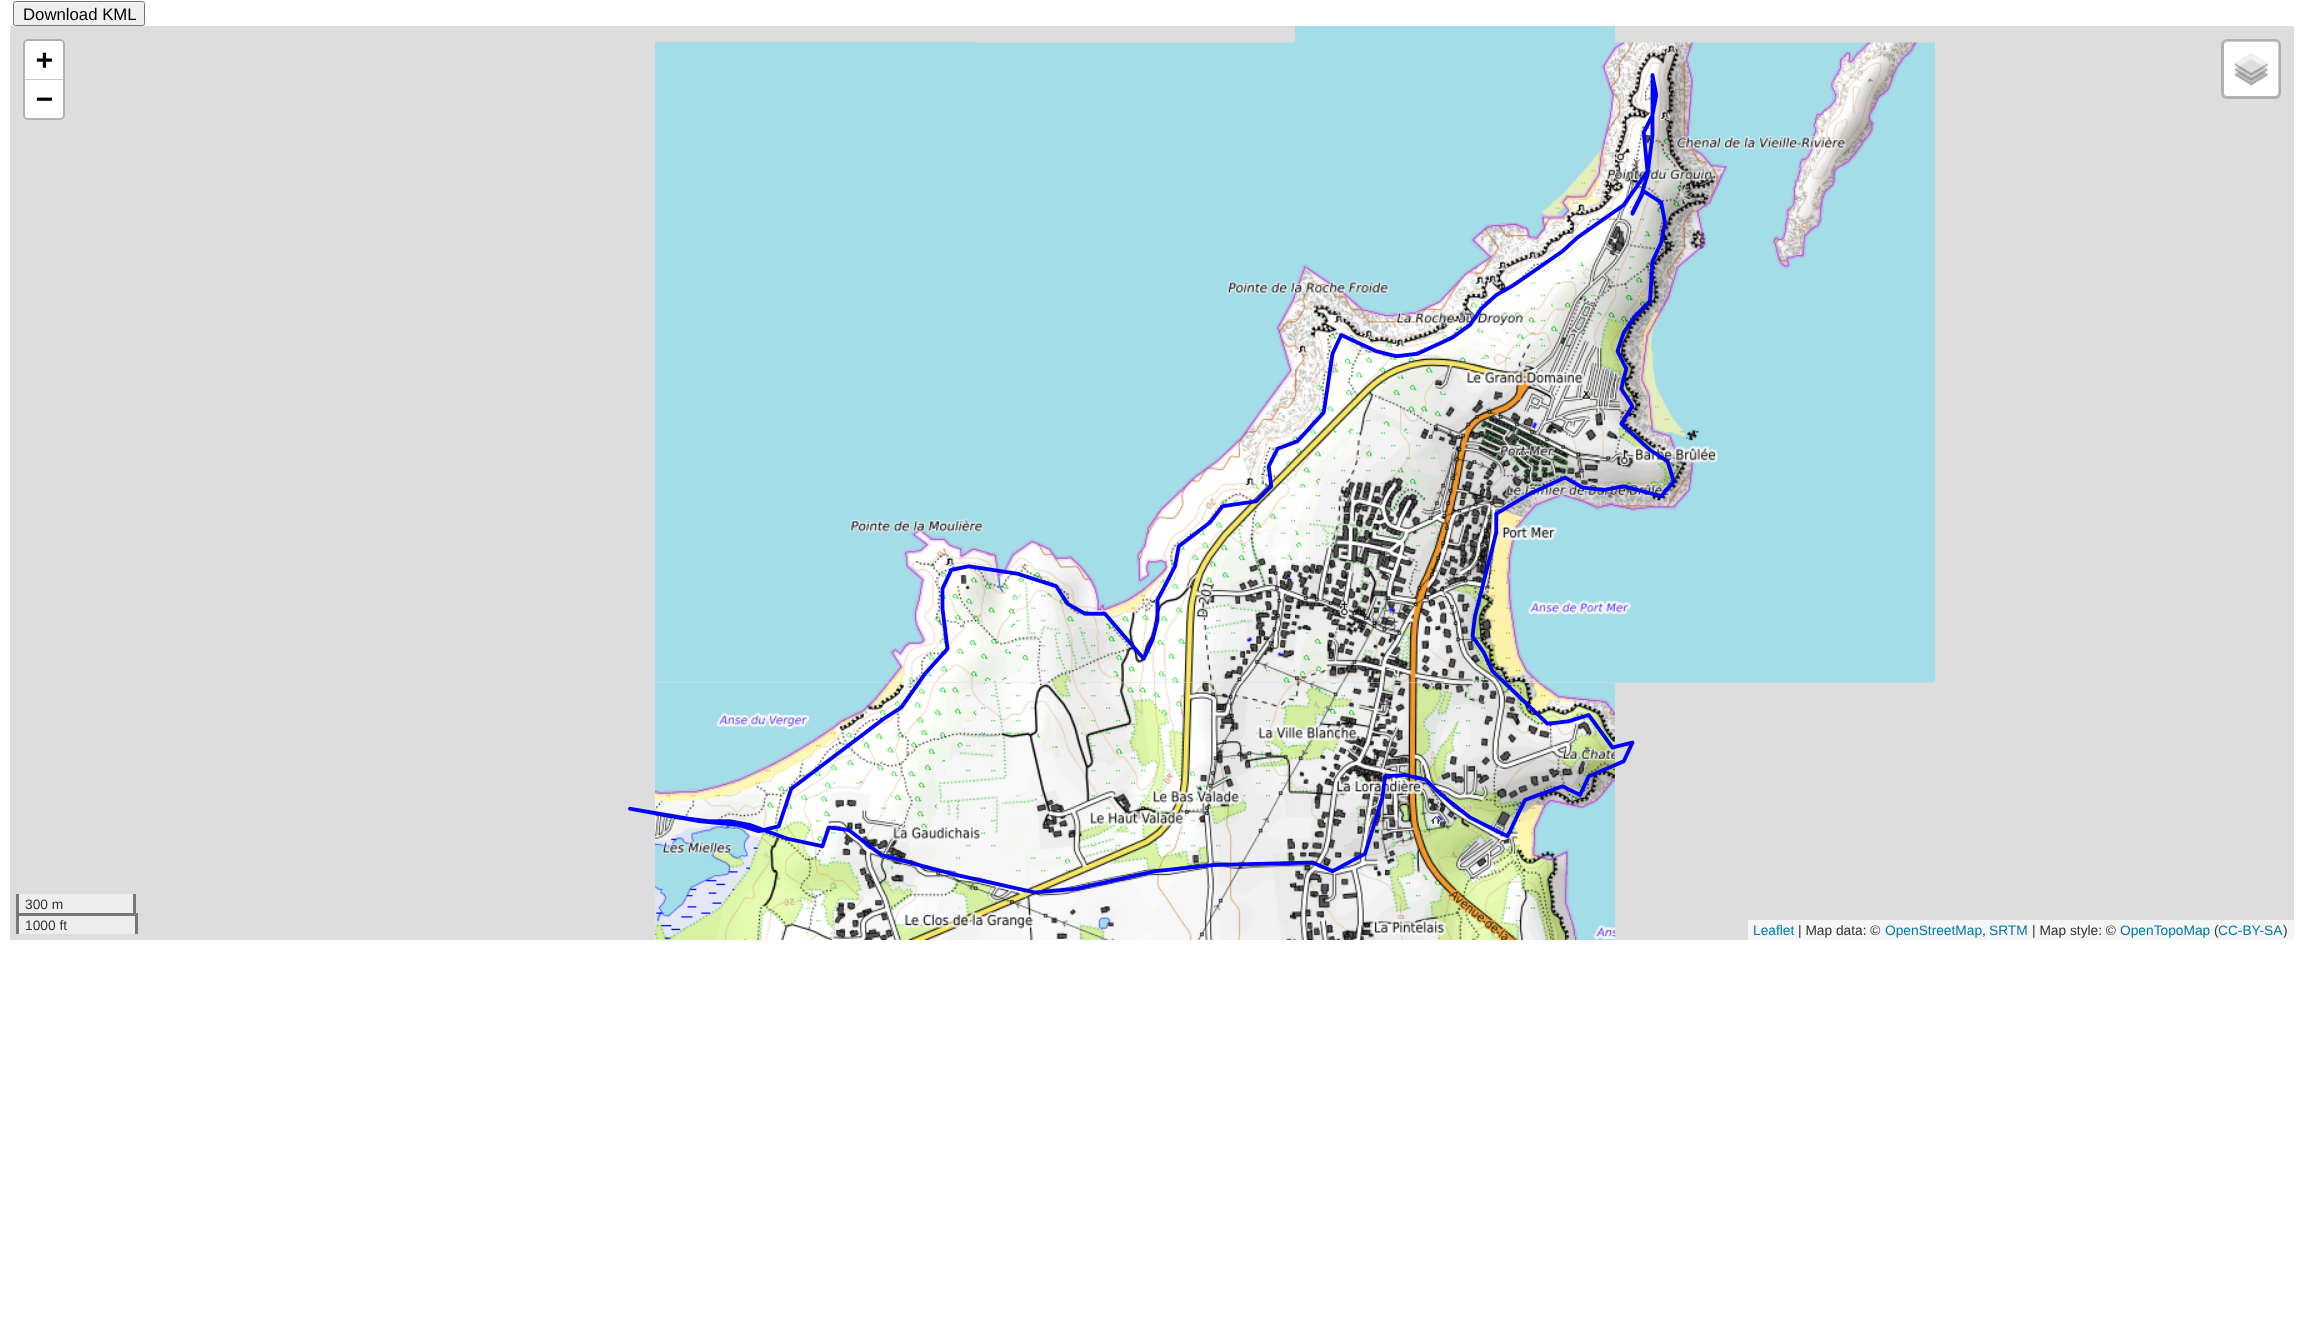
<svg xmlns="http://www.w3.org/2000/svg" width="2303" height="1331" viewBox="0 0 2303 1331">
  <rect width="100%" height="100%" fill="#fff"/>
  <rect x="13.5" y="1.5" width="131" height="24" rx="2" fill="#efefef" stroke="#767676"/>
  <path d="M10 26h2284v914H10z" fill="#ddd"/>
  <path d="M19 916h116v18H19z" fill="#eee"/>
  <path d="M1295 26h320v17H1295z" fill="#a3dde8"/>
  <path d="M655 42h320v321H655z" fill="#a3dde8"/>
  <image x="975" y="362" width="320" height="321" href="img/5.png"/>
  <image x="975" y="42" width="320" height="321" href="img/1.png"/>
  <image x="1295" y="362" width="320" height="321" href="img/6.png"/>
  <image x="1295" y="43" width="320" height="320" href="img/2.png"/>
  <image x="1615" y="362" width="320" height="321" href="img/7.png"/>
  <image x="1615" y="42" width="320" height="321" href="img/3.png"/>
  <image x="655" y="363" width="320" height="320" href="img/4.png"/>
  <image x="655" y="683" width="320" height="257" href="img/8.png"/>
  <image x="975" y="683" width="320" height="257" href="img/9.png"/>
  <image x="1295" y="683" width="320" height="257" href="img/10.png"/>
  <image x="628" y="73" width="1048" height="822" href="img/11.png"/>
  <rect x="24.5" y="40.5" width="39" height="78" rx="3.5" fill="none" stroke="#b1b1b1" stroke-width="3"/>
  <path d="M27.5 41H60.5C62 41 63 42 63 43.5V80H25V43.5C25 42 26 41 27.5 41Z" fill="#fff"/>
  <path d="M25 79h38v1H25z" fill="#ccc"/>
  <path d="M25 80H63V115.5C63 117 62 118 60.5 118H27.5C26 118 25 117 25 115.5Z" fill="#fff"/>
  <rect x="2224" y="41" width="55" height="55" rx="4" fill="#fff"/>
  <rect x="2222.5" y="40.5" width="57" height="57" rx="4.5" fill="none" stroke="#00000033" stroke-width="3"/>
  <image x="2235" y="53" width="33" height="32" href="img/12.png"/>
  <path d="M19 894h114v19H19z" fill="#eee"/>
  <path d="M133 894h3v21H133z" fill="#777"/>
  <path d="M16 894h3v21H16z" fill="#777"/>
  <path d="M16 913h122v3H16z" fill="#777"/>
  <path d="M135 913h3v21H135z" fill="#777"/>
  <path d="M16 913h3v21H16z" fill="#777"/>
  <path d="M1748 920h546v20H1748z" fill="#f5f5f5"/>
  <text x="23" y="20" font-family="Liberation Sans" font-size="16.75" fill="#000">Download KML</text>
  <g font-family="DejaVu Sans Mono" font-size="28" font-weight="bold" fill="#000">
    <text x="36" y="69">+</text>
    <text x="36" y="108">−</text>
  </g>
  <g font-family="Liberation Sans" font-size="13.75" fill="#333">
    <text x="25" y="909">300 m</text>
    <text x="25" y="930">1000 ft</text>
  </g>
  <text x="1753" y="935" font-family="Liberation Sans" font-size="13.75" fill="#0078a8">Leaflet</text>
  <text x="1798" y="935" font-family="Liberation Sans" font-size="13.75" fill="#333">| Map data: ©</text>
  <text x="1885" y="935" font-family="Liberation Sans" font-size="13.75" fill="#0078a8">OpenStreetMap</text>
  <text x="1982" y="935" font-family="Liberation Sans" font-size="13.75" fill="#333">,</text>
  <text x="1989" y="935" font-family="Liberation Sans" font-size="13.75" fill="#0078a8">SRTM</text>
  <text x="2032" y="935" font-family="Liberation Sans" font-size="13.75" fill="#333">| Map style: ©</text>
  <text x="2120" y="935" font-family="Liberation Sans" font-size="13.75" fill="#0078a8">OpenTopoMap</text>
  <text x="2214" y="935" font-family="Liberation Sans" font-size="13.75" fill="#333">(</text>
  <text x="2218" y="935" font-family="Liberation Sans" font-size="13.75" fill="#0078a8">CC-BY-SA</text>
  <text x="2283" y="935" font-family="Liberation Sans" font-size="13.75" fill="#333">)</text>
</svg>
